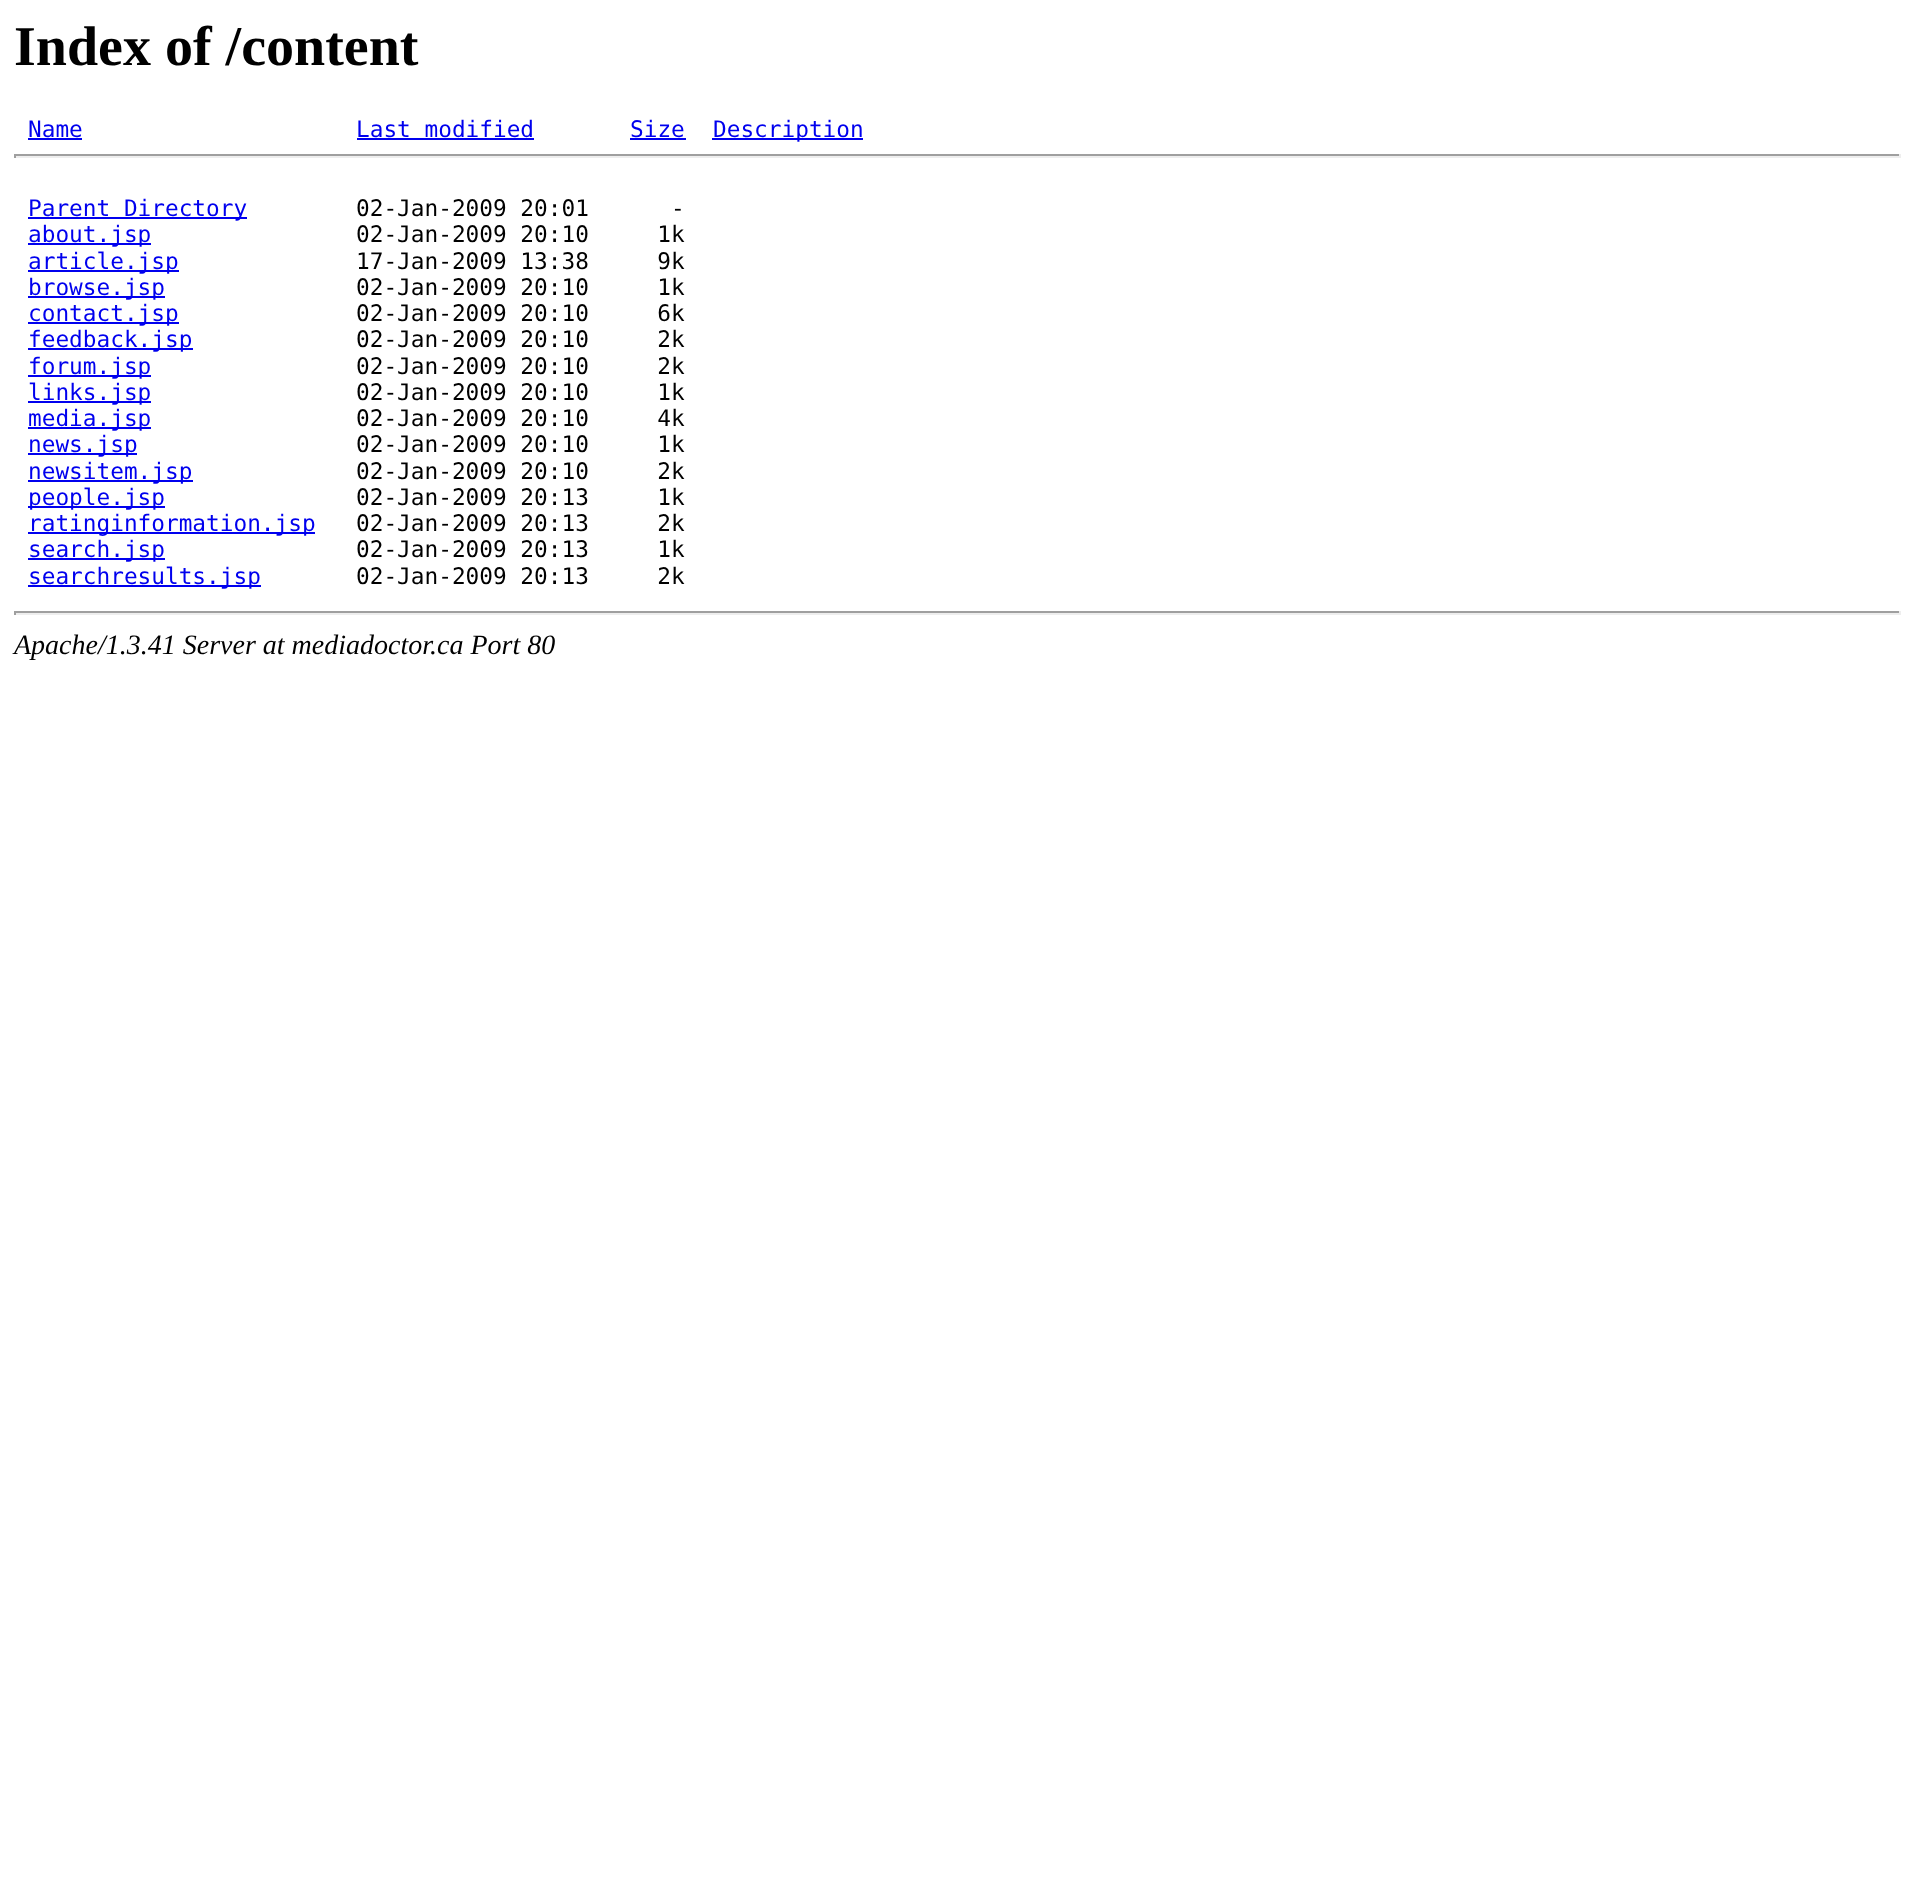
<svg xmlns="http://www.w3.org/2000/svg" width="1913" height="1890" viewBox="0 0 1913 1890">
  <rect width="100%" height="100%" fill="#fff"/>
  <path d="M28 138h54v2H28z" fill="#00e"/>
  <path d="M357 138h177v2H357z" fill="#00e"/>
  <path d="M630 138h56v2H630z" fill="#00e"/>
  <path d="M712 138h151v2H712z" fill="#00e"/>
  <path d="M14 154h1887v2H14z" fill="#9f9f9f"/>
  <path d="M1899 154h2v4H1899z" fill="#eee"/>
  <path d="M14 156h1887v2H14z" fill="#eee"/>
  <path d="M14 154h2v4H14z" fill="#9f9f9f"/>
  <path d="M28 217h219v2H28z" fill="#00e"/>
  <path d="M28 243h123v2H28z" fill="#00e"/>
  <path d="M28 270h151v2H28z" fill="#00e"/>
  <path d="M28 296h137v2H28z" fill="#00e"/>
  <path d="M28 322h151v2H28z" fill="#00e"/>
  <path d="M28 348h165v2H28z" fill="#00e"/>
  <path d="M28 375h123v2H28z" fill="#00e"/>
  <path d="M28 401h123v2H28z" fill="#00e"/>
  <path d="M28 427h123v2H28z" fill="#00e"/>
  <path d="M28 453h109v2H28z" fill="#00e"/>
  <path d="M28 480h165v2H28z" fill="#00e"/>
  <path d="M28 506h137v2H28z" fill="#00e"/>
  <path d="M28 532h287v2H28z" fill="#00e"/>
  <path d="M28 558h137v2H28z" fill="#00e"/>
  <path d="M28 585h233v2H28z" fill="#00e"/>
  <path d="M14 611h1887v2H14z" fill="#9f9f9f"/>
  <path d="M1899 611h2v4H1899z" fill="#eee"/>
  <path d="M14 613h1887v2H14z" fill="#eee"/>
  <path d="M14 611h2v4H14z" fill="#9f9f9f"/>
  <text x="14" y="65" font-family="Liberation Serif" font-size="56" font-weight="bold" fill="#000">Index of /content</text>
  <g font-family="DejaVu Sans Mono" font-size="22.75" fill="#00e">
    <text x="28" y="137">Name</text>
    <text x="356" y="137">Last modified</text>
    <text x="630" y="137">Size</text>
    <text x="713" y="137">Description</text>
    <text x="28" y="216">Parent Directory</text>
  </g>
  <text x="356" y="216" font-family="DejaVu Sans Mono" font-size="22.75" fill="#000" xml:space="preserve">02-Jan-2009 20:01      -</text>
  <text x="28" y="242" font-family="DejaVu Sans Mono" font-size="22.75" fill="#00e">about.jsp</text>
  <text x="356" y="242" font-family="DejaVu Sans Mono" font-size="22.75" fill="#000" xml:space="preserve">02-Jan-2009 20:10     1k</text>
  <text x="28" y="269" font-family="DejaVu Sans Mono" font-size="22.75" fill="#00e">article.jsp</text>
  <text x="356" y="269" font-family="DejaVu Sans Mono" font-size="22.75" fill="#000" xml:space="preserve">17-Jan-2009 13:38     9k</text>
  <text x="28" y="295" font-family="DejaVu Sans Mono" font-size="22.75" fill="#00e">browse.jsp</text>
  <text x="356" y="295" font-family="DejaVu Sans Mono" font-size="22.75" fill="#000" xml:space="preserve">02-Jan-2009 20:10     1k</text>
  <text x="28" y="321" font-family="DejaVu Sans Mono" font-size="22.75" fill="#00e">contact.jsp</text>
  <text x="356" y="321" font-family="DejaVu Sans Mono" font-size="22.75" fill="#000" xml:space="preserve">02-Jan-2009 20:10     6k</text>
  <text x="28" y="347" font-family="DejaVu Sans Mono" font-size="22.75" fill="#00e">feedback.jsp</text>
  <text x="356" y="347" font-family="DejaVu Sans Mono" font-size="22.75" fill="#000" xml:space="preserve">02-Jan-2009 20:10     2k</text>
  <text x="28" y="374" font-family="DejaVu Sans Mono" font-size="22.75" fill="#00e">forum.jsp</text>
  <text x="356" y="374" font-family="DejaVu Sans Mono" font-size="22.75" fill="#000" xml:space="preserve">02-Jan-2009 20:10     2k</text>
  <text x="28" y="400" font-family="DejaVu Sans Mono" font-size="22.75" fill="#00e">links.jsp</text>
  <text x="356" y="400" font-family="DejaVu Sans Mono" font-size="22.75" fill="#000" xml:space="preserve">02-Jan-2009 20:10     1k</text>
  <text x="28" y="426" font-family="DejaVu Sans Mono" font-size="22.75" fill="#00e">media.jsp</text>
  <text x="356" y="426" font-family="DejaVu Sans Mono" font-size="22.75" fill="#000" xml:space="preserve">02-Jan-2009 20:10     4k</text>
  <text x="28" y="452" font-family="DejaVu Sans Mono" font-size="22.75" fill="#00e">news.jsp</text>
  <text x="356" y="452" font-family="DejaVu Sans Mono" font-size="22.75" fill="#000" xml:space="preserve">02-Jan-2009 20:10     1k</text>
  <text x="28" y="479" font-family="DejaVu Sans Mono" font-size="22.75" fill="#00e">newsitem.jsp</text>
  <text x="356" y="479" font-family="DejaVu Sans Mono" font-size="22.75" fill="#000" xml:space="preserve">02-Jan-2009 20:10     2k</text>
  <text x="28" y="505" font-family="DejaVu Sans Mono" font-size="22.75" fill="#00e">people.jsp</text>
  <text x="356" y="505" font-family="DejaVu Sans Mono" font-size="22.75" fill="#000" xml:space="preserve">02-Jan-2009 20:13     1k</text>
  <text x="28" y="531" font-family="DejaVu Sans Mono" font-size="22.75" fill="#00e">ratinginformation.jsp</text>
  <text x="356" y="531" font-family="DejaVu Sans Mono" font-size="22.75" fill="#000" xml:space="preserve">02-Jan-2009 20:13     2k</text>
  <text x="28" y="557" font-family="DejaVu Sans Mono" font-size="22.75" fill="#00e">search.jsp</text>
  <text x="356" y="557" font-family="DejaVu Sans Mono" font-size="22.75" fill="#000" xml:space="preserve">02-Jan-2009 20:13     1k</text>
  <text x="28" y="584" font-family="DejaVu Sans Mono" font-size="22.75" fill="#00e">searchresults.jsp</text>
  <text x="356" y="584" font-family="DejaVu Sans Mono" font-size="22.75" fill="#000" xml:space="preserve">02-Jan-2009 20:13     2k</text>
  <text x="14" y="654" font-family="Liberation Serif" font-size="28" font-style="italic" fill="#000">Apache/1.3.41 Server at mediadoctor.ca Port 80</text>
</svg>
